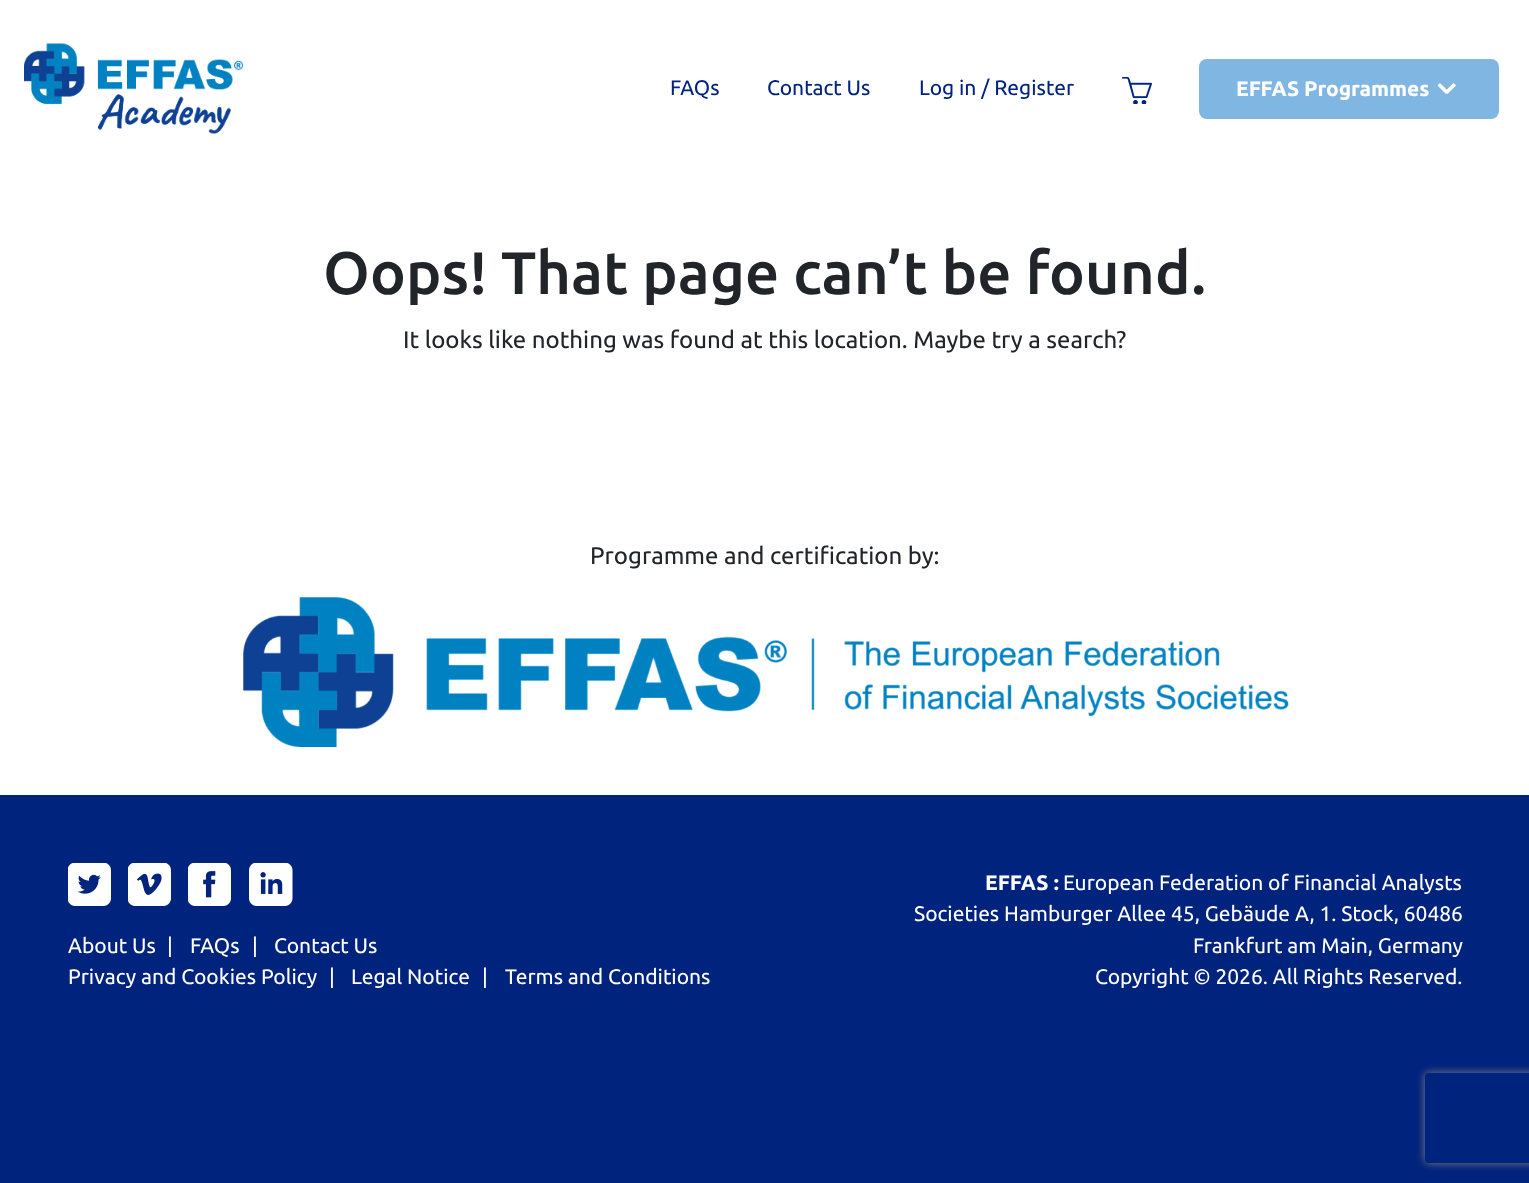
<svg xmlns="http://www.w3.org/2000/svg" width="1529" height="1183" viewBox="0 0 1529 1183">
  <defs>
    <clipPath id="clip1"><path d="M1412 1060H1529V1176H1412ZM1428 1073H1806C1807.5 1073 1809 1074.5 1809 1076V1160C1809 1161.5 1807.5 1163 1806 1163H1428C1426.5 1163 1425 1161.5 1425 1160V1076C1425 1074.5 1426.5 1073 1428 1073Z" clip-rule="evenodd"/></clipPath>
  </defs>
  <rect width="100%" height="100%" fill="#fff"/>
  <image x="24" y="43" width="219" height="91" href="img/1.png"/>
  <image x="1122" y="77" width="30" height="27" href="img/2.png"/>
  <rect x="1199" y="59" width="300" height="60" rx="8" fill="#80b6e2"/>
  <path d="M1447.5 94L1445 91.5L1453.5 83L1456 85.5Z" fill="#fff"/>
  <path d="M1448.5 91.5L1446 94L1437.5 85.5L1440 83Z" fill="#fff"/>
  <image x="243" y="597" width="1046" height="150" href="img/3.png"/>
  <path d="M0 795h1529v388H0z" fill="#00237d"/>
  <image x="68" y="863" width="43" height="43" href="img/4.png"/>
  <image x="128" y="863" width="43" height="43" href="img/5.png"/>
  <image x="188" y="863" width="43" height="43" href="img/6.png"/>
  <image x="249" y="863" width="44" height="43" href="img/7.png"/>
  <g clip-path="url(#clip1)">
    <rect x="1425" y="1073" width="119" height="90" rx="3" fill="#808080" filter="blur(4px)"/>
  </g>
  <g font-family="Ubuntu" font-size="21" fill="#00237d">
    <text x="670" y="95">FAQs</text>
    <text x="767" y="95">Contact Us</text>
    <text x="919" y="95">Log in / Register</text>
  </g>
  <text x="1236" y="96" font-family="Ubuntu" font-size="21" font-weight="bold" letter-spacing="-0.1" fill="#fff">EFFAS Programmes</text>
  <text x="323" y="294" font-family="Ubuntu" font-size="60" font-weight="500" fill="#212529">Oops! That page can’t be found.</text>
  <g font-family="Ubuntu" font-size="24" fill="#212529">
    <text x="403" y="348">It looks like nothing was found at this location. Maybe try a search?</text>
    <text x="590" y="564">Programme and certification by:</text>
  </g>
  <g font-family="Ubuntu" font-size="21" fill="#fff">
    <text x="68" y="953">About Us</text>
    <text x="167" y="953">|</text>
    <text x="190" y="953">FAQs</text>
    <text x="252" y="953">|</text>
    <text x="274" y="953">Contact Us</text>
    <text x="68" y="984">Privacy and Cookies Policy</text>
    <text x="329" y="984">|</text>
    <text x="351" y="984">Legal Notice</text>
    <text x="482" y="984">|</text>
    <text x="505" y="984">Terms and Conditions</text>
  </g>
  <text x="985" y="890" font-family="Ubuntu" font-size="21" font-weight="bold" fill="#fff">EFFAS :</text>
  <g font-family="Ubuntu" font-size="21" fill="#fff">
    <text x="1063" y="890">European Federation of Financial Analysts</text>
    <text x="914" y="921">Societies Hamburger Allee 45, Gebäude A, 1. Stock, 60486</text>
    <text x="1193" y="953">Frankfurt am Main, Germany</text>
    <text x="1095" y="984">Copyright © 2026. All Rights Reserved.</text>
  </g>
</svg>
